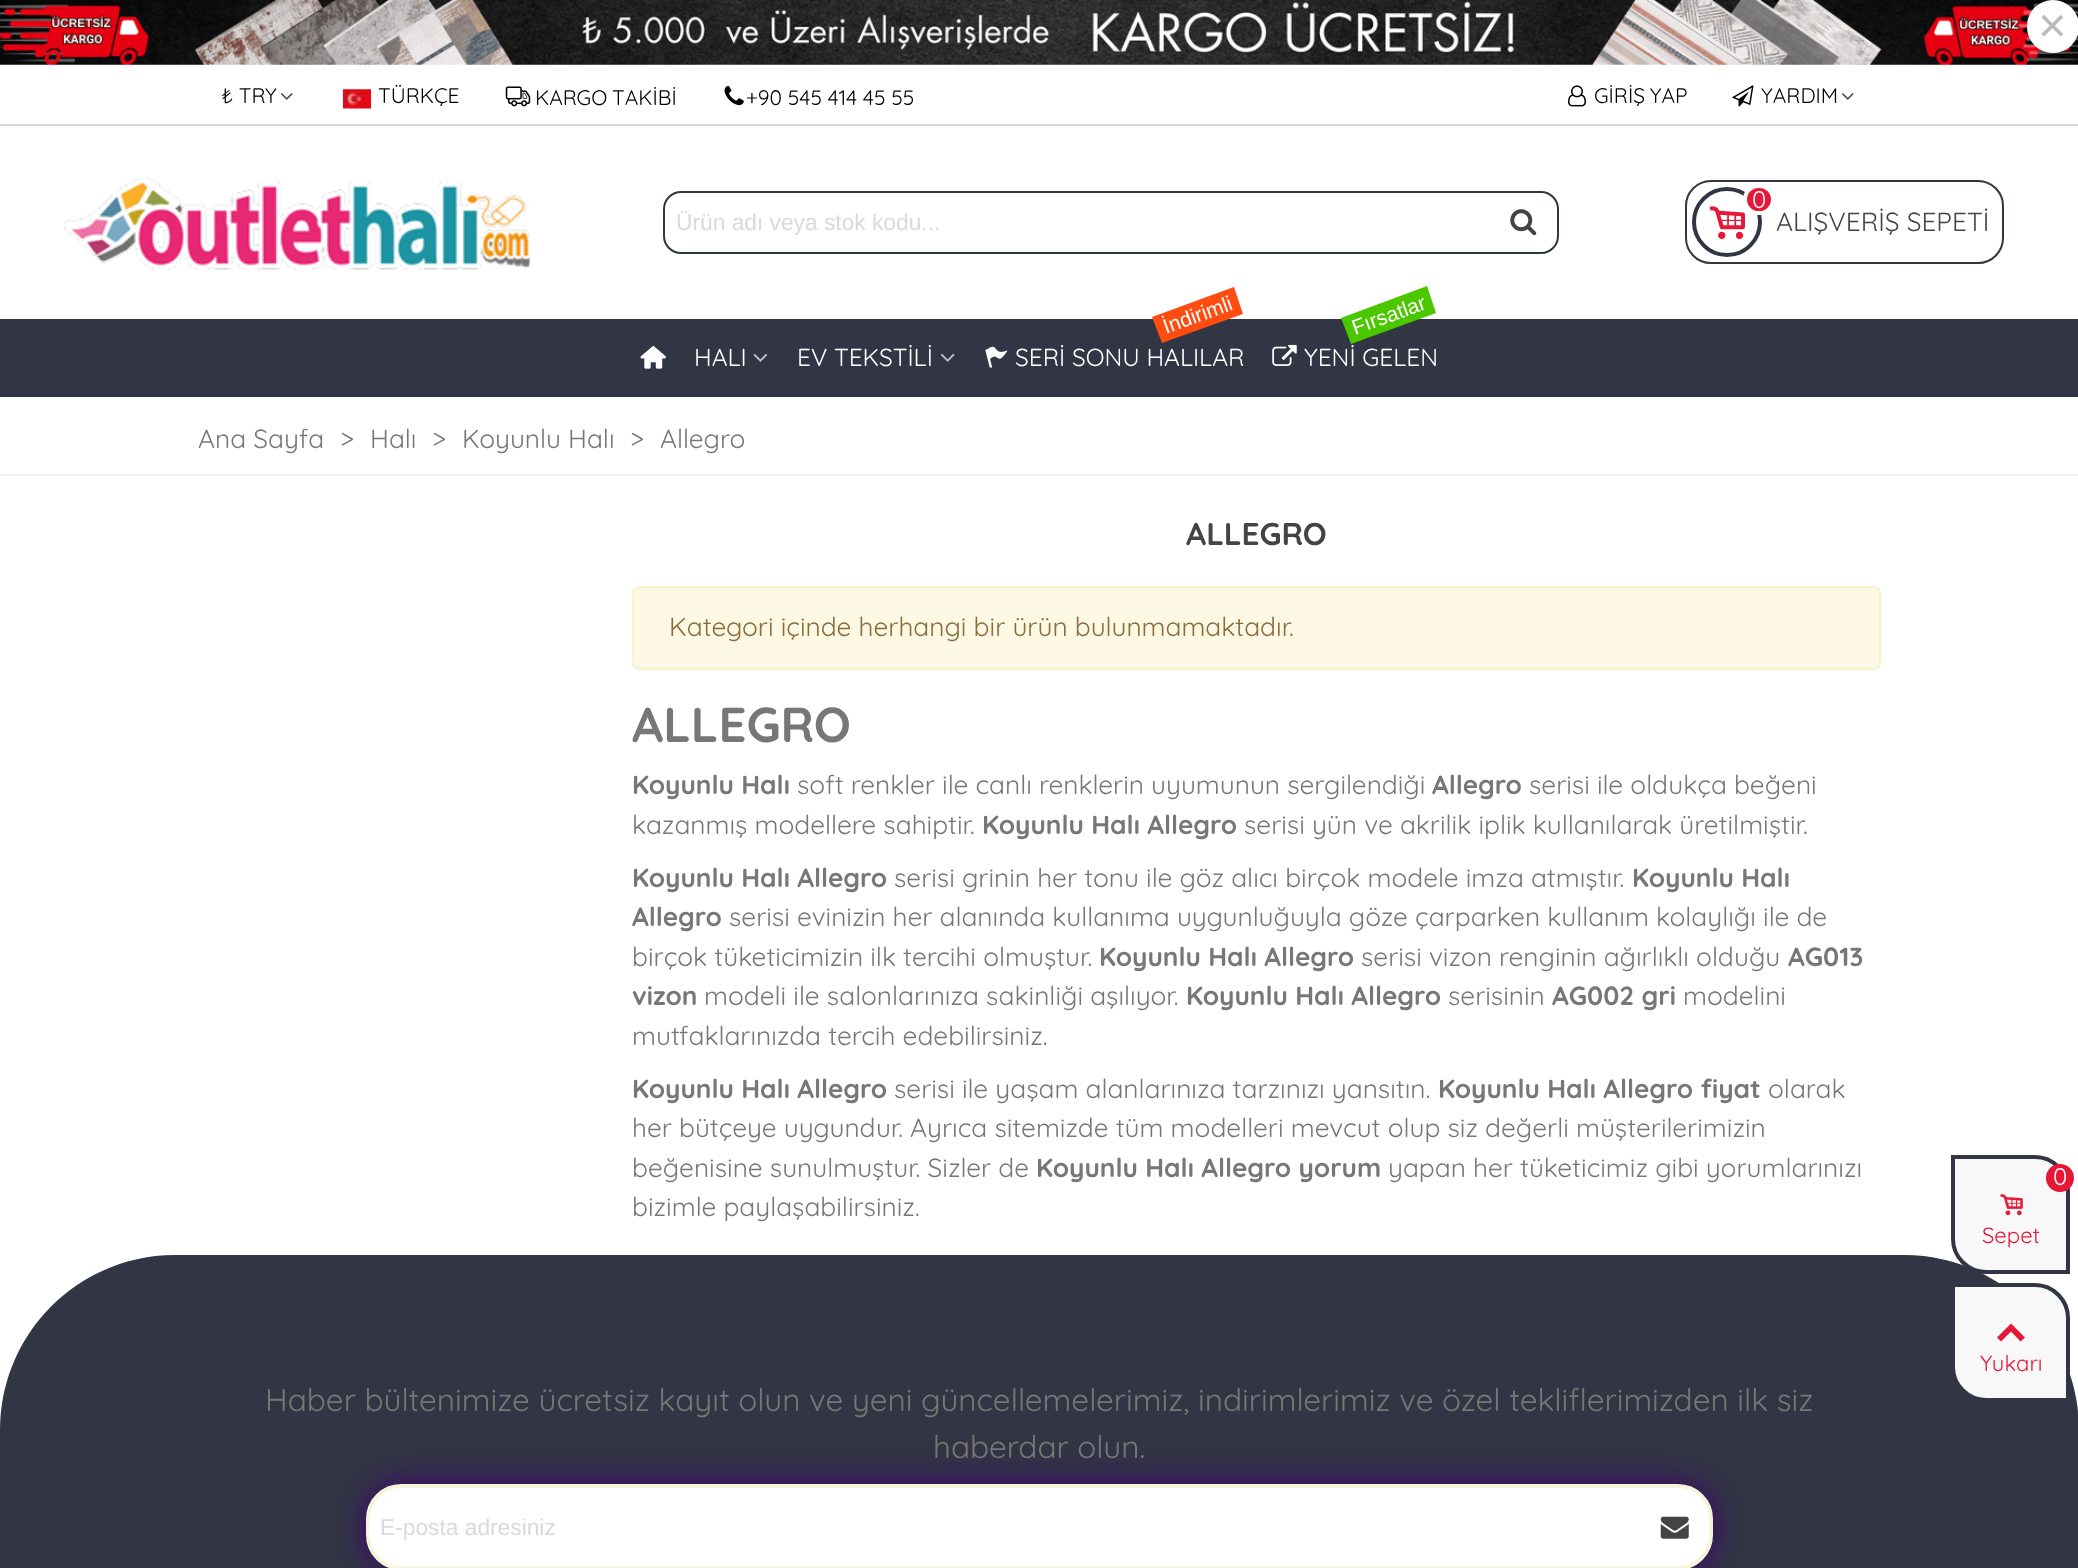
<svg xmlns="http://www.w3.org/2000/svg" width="2078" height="1568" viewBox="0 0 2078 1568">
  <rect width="100%" height="100%" fill="#fff"/>
  <image x="0" y="0" width="2078" height="65" href="img/1.png"/>
  <rect x="2027" width="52" height="53" rx="26" fill="#fff"/>
  <path d="M0 124h2078v2H0z" fill="#d9d9d9"/>
  <image x="281" y="93" width="12" height="7" href="img/2.png"/>
  <image x="343" y="89" width="28" height="20" href="img/3.png"/>
  <image x="505" y="86" width="26" height="21" href="img/4.png"/>
  <image x="724" y="85" width="20" height="21" href="img/5.png"/>
  <image x="1568" y="85" width="18" height="22" href="img/6.png"/>
  <image x="1732" y="85" width="22" height="22" href="img/7.png"/>
  <image x="1842" y="93" width="12" height="7" href="img/2.png"/>
  <image x="64" y="177" width="466" height="93" href="img/8.png"/>
  <rect x="664" y="192" width="894" height="61" rx="17" fill="none" stroke="#323644" stroke-width="2"/>
  <image x="1510" y="209" width="27" height="27" href="img/9.png"/>
  <rect x="1686" y="181" width="317" height="82" rx="25" fill="none" stroke="#323644" stroke-width="2"/>
  <circle cx="1727" cy="222" r="33" fill="none" stroke="#323644" stroke-width="4"/>
  <image x="1709" y="206" width="36" height="34" href="img/10.png"/>
  <rect x="1745" y="186" width="28" height="27" rx="13.5" fill="#e51837" stroke="#fff" stroke-width="4"/>
  <path d="M0 319h2078v78H0z" fill="#323644"/>
  <image x="640" y="345" width="26" height="24" href="img/11.png"/>
  <image x="753" y="353" width="15" height="9" href="img/12.png"/>
  <image x="940" y="353" width="15" height="9" href="img/13.png"/>
  <path d="M1152 317L1234 287L1243 314L1162 343Z" fill="#ff4c11"/>
  <image x="985" y="346" width="23" height="22" href="img/14.png"/>
  <path d="M1341 318L1427 286L1436 313L1351 344Z" fill="#4bc700"/>
  <image x="1272" y="344" width="25" height="22" href="img/15.png"/>
  <path d="M0 474h2078v2H0z" fill="#f2f2f2"/>
  <rect x="633" y="587" width="1247" height="82" rx="6" fill="#fcf8e3" stroke="#faf2cc" stroke-width="2"/>
  <path d="M175 1255H1904C2000.5 1255 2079 1333.5 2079 1430V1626H0V1430C0 1333.5 78.5 1255 175 1255Z" fill="#323644"/>
  <rect x="366" y="1484" width="1347" height="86" rx="35" fill="#3e0071" filter="blur(17.5px)"/>
  <rect x="368" y="1486" width="1343" height="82" rx="33" fill="#fff" stroke="#f5f5dc" stroke-width="4"/>
  <rect x="369" y="1488" width="1276" height="78" rx="35" fill="#fff"/>
  <image x="1660" y="1516" width="29" height="23" href="img/16.png"/>
  <path d="M1953 1157H2035C2053 1157 2068 1172 2068 1190V1272H1986C1968 1272 1953 1257 1953 1239Z" fill="#f8f8f8" stroke="#323644" stroke-width="4"/>
  <circle cx="2060" cy="1178" r="14" fill="#e51837"/>
  <image x="2000" y="1194" width="23" height="22" href="img/17.png"/>
  <path d="M1953 1285H2035C2053 1285 2068 1300 2068 1318V1400H1986C1968 1400 1953 1385 1953 1367Z" fill="#f8f8f8" stroke="#323644" stroke-width="4"/>
  <path d="M1997 1337.5L2011 1323.5L2025 1337.5L2020.5 1341.5L2011 1331.5L2001 1341.5Z" fill="#e51837"/>
  <text x="2038" y="42" font-family="Liberation Sans" font-size="49" fill="#bababa">×</text>
  <g font-family="Quicksand" font-size="21" fill="#000">
    <text x="221" y="103">₺ TRY</text>
    <text x="378" y="103">TÜRKÇE</text>
    <text x="535" y="105" word-spacing="-1">KARGO TAKİBİ</text>
    <text x="746" y="105">+90 545 414 45 55</text>
    <text x="1594" y="103" word-spacing="-1">GİRİŞ YAP</text>
    <text x="1761" y="103">YARDIM</text>
  </g>
  <text x="676" y="230" font-family="Liberation Sans" font-size="22.75" fill="#dadada">Ürün adı veya stok kodu...</text>
  <text x="1752" y="208" font-family="Quicksand" font-size="24" fill="#fff">0</text>
  <text x="1776" y="231" font-family="Quicksand" font-size="26.25" fill="#444">ALIŞVERİŞ SEPETİ</text>
  <g font-family="Quicksand" font-size="24.5" fill="#fff">
    <text x="694" y="366">HALI</text>
    <text x="797" y="366">EV TEKSTİLİ</text>
  </g>
  <text x="1166" y="334" transform="rotate(-20 1166 334)" font-family="Liberation Sans" font-size="21" fill="#fff">İndirimli</text>
  <text x="1015" y="366" font-family="Quicksand" font-size="24.5" fill="#fff">SERİ SONU HALILAR</text>
  <text x="1355" y="335" transform="rotate(-20 1355 335)" font-family="Liberation Sans" font-size="21" fill="#fff">Fırsatlar</text>
  <text x="1304" y="366" font-family="Quicksand" font-size="24.5" fill="#fff">YENİ GELEN</text>
  <g font-family="Quicksand" font-size="26.25" fill="#777">
    <text x="198" y="448">Ana Sayfa</text>
    <text x="340" y="448">&gt;</text>
    <text x="370" y="448">Halı</text>
    <text x="432" y="448">&gt;</text>
    <text x="462" y="448">Koyunlu Halı</text>
    <text x="630" y="448">&gt;</text>
    <text x="660" y="448">Allegro</text>
  </g>
  <text x="1186" y="545" font-family="Quicksand" font-size="31.5" font-weight="bold" fill="#444">ALLEGRO</text>
  <text x="669" y="636" font-family="Quicksand" font-size="26.25" fill="#8a6d3b">Kategori içinde herhangi bir ürün bulunmamaktadır.</text>
  <text x="632" y="742" font-family="Quicksand" font-size="49" font-weight="bold" fill="#777">ALLEGRO</text>
  <text x="632" y="794" font-family="Quicksand" font-size="26.25" font-weight="bold" fill="#777">Koyunlu Halı</text>
  <text x="797" y="794" font-family="Quicksand" font-size="26.25" fill="#777">soft renkler ile canlı renklerin uyumunun sergilendiği</text>
  <text x="1432" y="794" font-family="Quicksand" font-size="26.25" font-weight="bold" fill="#777">Allegro</text>
  <g font-family="Quicksand" font-size="26.25" fill="#777">
    <text x="1529" y="794">serisi ile oldukça beğeni</text>
    <text x="632" y="834">kazanmış modellere sahiptir.</text>
  </g>
  <text x="982" y="834" font-family="Quicksand" font-size="26.25" font-weight="bold" fill="#777">Koyunlu Halı Allegro</text>
  <text x="1244" y="834" font-family="Quicksand" font-size="26.25" fill="#777">serisi yün ve akrilik iplik kullanılarak üretilmiştir.</text>
  <text x="632" y="887" font-family="Quicksand" font-size="26.25" font-weight="bold" fill="#777">Koyunlu Halı Allegro</text>
  <text x="894" y="887" font-family="Quicksand" font-size="26.25" fill="#777">serisi grinin her tonu ile göz alıcı birçok modele imza atmıştır.</text>
  <g font-family="Quicksand" font-size="26.25" font-weight="bold" fill="#777">
    <text x="1632" y="887">Koyunlu Halı</text>
    <text x="632" y="926">Allegro</text>
  </g>
  <g font-family="Quicksand" font-size="26.25" fill="#777">
    <text x="729" y="926">serisi evinizin her alanında kullanıma uygunluğuyla göze çarparken kullanım kolaylığı ile de</text>
    <text x="632" y="966">birçok tüketicimizin ilk tercihi olmuştur.</text>
  </g>
  <text x="1099" y="966" font-family="Quicksand" font-size="26.25" font-weight="bold" fill="#777">Koyunlu Halı Allegro</text>
  <text x="1361" y="966" font-family="Quicksand" font-size="26.25" fill="#777">serisi vizon renginin ağırlıklı olduğu</text>
  <g font-family="Quicksand" font-size="26.25" font-weight="bold" fill="#777">
    <text x="1788" y="966">AG013</text>
    <text x="632" y="1005">vizon</text>
  </g>
  <text x="704" y="1005" font-family="Quicksand" font-size="26.25" fill="#777">modeli ile salonlarınıza sakinliği aşılıyor.</text>
  <text x="1186" y="1005" font-family="Quicksand" font-size="26.25" font-weight="bold" fill="#777">Koyunlu Halı Allegro</text>
  <text x="1448" y="1005" font-family="Quicksand" font-size="26.25" fill="#777">serisinin</text>
  <text x="1552" y="1005" font-family="Quicksand" font-size="26.25" font-weight="bold" fill="#777">AG002 gri</text>
  <g font-family="Quicksand" font-size="26.25" fill="#777">
    <text x="1683" y="1005">modelini</text>
    <text x="632" y="1045">mutfaklarınızda tercih edebilirsiniz.</text>
  </g>
  <text x="632" y="1098" font-family="Quicksand" font-size="26.25" font-weight="bold" fill="#777">Koyunlu Halı Allegro</text>
  <text x="894" y="1098" font-family="Quicksand" font-size="26.25" fill="#777">serisi ile yaşam alanlarınıza tarzınızı yansıtın.</text>
  <text x="1438" y="1098" font-family="Quicksand" font-size="26.25" font-weight="bold" fill="#777">Koyunlu Halı Allegro fiyat</text>
  <g font-family="Quicksand" font-size="26.25" fill="#777">
    <text x="1768" y="1098">olarak</text>
    <text x="632" y="1137">her bütçeye uygundur. Ayrıca sitemizde tüm modelleri mevcut olup siz değerli müşterilerimizin</text>
    <text x="632" y="1177">beğenisine sunulmuştur. Sizler de</text>
  </g>
  <text x="1036" y="1177" font-family="Quicksand" font-size="26.25" font-weight="bold" fill="#777">Koyunlu Halı Allegro yorum</text>
  <g font-family="Quicksand" font-size="26.25" fill="#777">
    <text x="1388" y="1177">yapan her tüketicimiz gibi yorumlarınızı</text>
    <text x="632" y="1216">bizimle paylaşabilirsiniz.</text>
  </g>
  <g font-family="Quicksand" font-size="31.5" fill="#777">
    <text x="265" y="1411">Haber bültenimize ücretsiz kayıt olun ve yeni güncellemelerimiz, indirimlerimiz ve özel tekliflerimizden ilk siz</text>
    <text x="933" y="1458">haberdar olun.</text>
  </g>
  <text x="380" y="1535" font-family="Liberation Sans" font-size="22.75" fill="#dadada">E-posta adresiniz</text>
  <text x="2053" y="1185" font-family="Quicksand" font-size="24" fill="#fff">0</text>
  <g font-family="Quicksand" font-size="22" fill="#e51837">
    <text x="1982" y="1243">Sepet</text>
    <text x="1980" y="1371">Yukarı</text>
  </g>
</svg>
